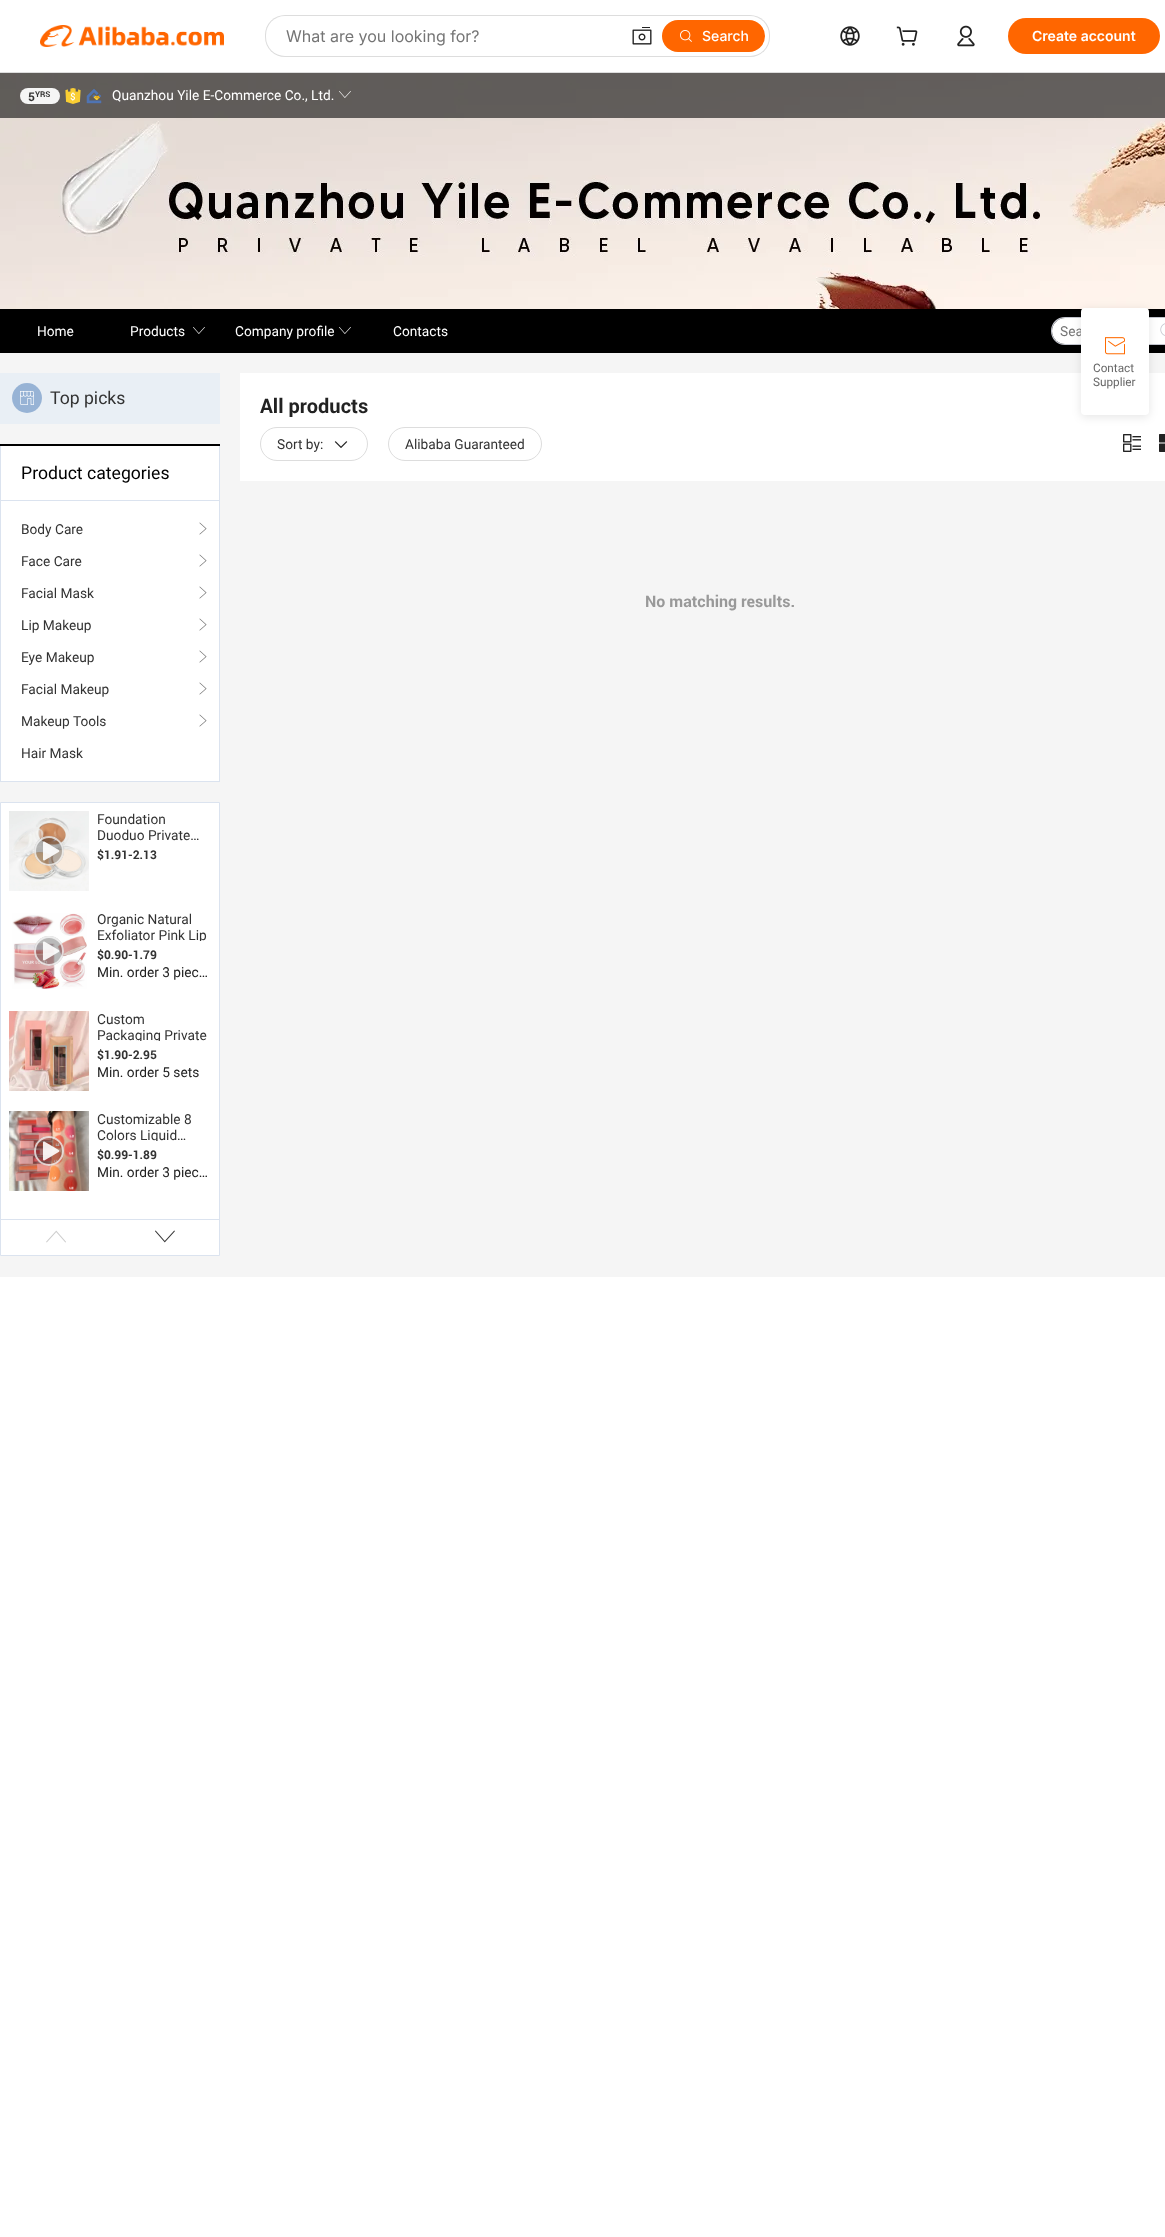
<svg xmlns="http://www.w3.org/2000/svg" width="1165" height="2237" viewBox="0 0 1165 2237">
  <defs>
    <clipPath id="clip1"><path d="M97 911h114v30H97z"/></clipPath>
    <clipPath id="clip2"><path d="M97 1011h114v30H97z"/></clipPath>
    <clipPath id="clip3"><path d="M97 1111h114v30H97z"/></clipPath>
  </defs>
  <rect width="100%" height="100%" fill="#fff"/>
  <path d="M0 72h1165v1H0z" fill="#ddd"/>
  <image x="40" y="25" width="184" height="22" href="img/1.png"/>
  <rect x="265" y="15" width="505" height="42" rx="20" fill="#ddd"/>
  <rect x="266" y="16" width="503" height="40" rx="19" fill="#fff"/>
  <image x="632" y="27" width="20" height="18" href="img/2.png"/>
  <rect x="662" y="20" width="103" height="32" rx="16" fill="#f60"/>
  <image x="680" y="30" width="12" height="12" href="img/3.png"/>
  <image x="840" y="26" width="20" height="20" href="img/4.png"/>
  <image x="896" y="26" width="22" height="20" href="img/5.png"/>
  <image x="957" y="25" width="18" height="22" href="img/6.png"/>
  <rect x="1008" y="18" width="152" height="36" rx="18" fill="#f60"/>
  <path d="M0 353h1165v924H0z" fill="#f5f5f5"/>
  <image x="0" y="73" width="1165" height="236" href="img/7.png"/>
  <path d="M0 73h1165v45H0z" fill="#33333333"/>
  <path d="M0 73h1165v45H0z" fill="#00000080"/>
  <rect x="20" y="88" width="40" height="16" rx="8" fill="#f5f5f5"/>
  <image x="65" y="88" width="16" height="16" href="img/8.png"/>
  <image x="86" y="89" width="16" height="15" href="img/9.png"/>
  <image x="339" y="91" width="12" height="7" href="img/10.png"/>
  <path d="M0 309h1165v44H0z" fill="#000"/>
  <image x="193" y="327" width="12" height="7" href="img/11.png"/>
  <image x="339" y="327" width="12" height="7" href="img/11.png"/>
  <path d="M1065 317H1152V345H1065C1057 345 1051 339 1051 331C1051 323 1057 317 1065 317ZM1065 318H1152V344H1065C1058 344 1052 338 1052 331C1052 324 1058 318 1065 318Z" fill="#c4c6cf" fill-rule="evenodd"/>
  <path d="M1065 318H1151.5C1152 318 1152 318 1152 318.5V343.5C1152 344 1152 344 1151.5 344H1065C1058 344 1052 338 1052 331C1052 324 1058 318 1065 318Z" fill="#fff"/>
  <path d="M1152 318h13v26H1152z" fill="#fff"/>
  <path d="M1152 317H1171C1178.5 317 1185 323.5 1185 331C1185 338.5 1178.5 345 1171 345H1152ZM1152 318H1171C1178 318 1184 324 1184 331C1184 338 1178 344 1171 344H1152Z" fill="#c4c6cf" fill-rule="evenodd"/>
  <image x="1160" y="323" width="5" height="13" href="img/12.png"/>
  <path d="M0 373h220v51H0z" fill="#e9eff5"/>
  <circle cx="27" cy="398" r="15" fill="#97b3d5"/>
  <image x="20" y="391" width="14" height="14" href="img/13.png"/>
  <path d="M1 446h218v335H1z" fill="#fff"/>
  <path d="M0 444h220v2H0z" fill="#000"/>
  <path d="M219 446h1v336H219z" fill="#dbe3ef"/>
  <path d="M0 781h220v1H0z" fill="#dbe3ef"/>
  <path d="M0 446h1v336H0z" fill="#dbe3ef"/>
  <path d="M1 500h218v1H1z" fill="#dbe3ef"/>
  <image x="199" y="522" width="8" height="13" href="img/14.png"/>
  <image x="199" y="554" width="8" height="13" href="img/14.png"/>
  <image x="199" y="586" width="8" height="13" href="img/14.png"/>
  <image x="199" y="618" width="8" height="13" href="img/14.png"/>
  <image x="199" y="650" width="8" height="13" href="img/14.png"/>
  <image x="199" y="682" width="8" height="13" href="img/14.png"/>
  <image x="199" y="714" width="8" height="13" href="img/14.png"/>
  <path d="M0.5 802.5h219v453H0.5z" fill="#fff" stroke="#dbe3ef"/>
  <image x="9" y="811" width="80" height="80" href="img/15.png"/>
  <circle cx="49" cy="851" r="15" fill="#00000045"/>
  <circle cx="49" cy="851" r="14" fill="none" stroke="#ffffffb8" stroke-width="2"/>
  <image x="43" y="841" width="17" height="20" href="img/16.png"/>
  <image x="12" y="913" width="75" height="76" href="img/17.png"/>
  <circle cx="49" cy="951" r="15" fill="#00000045"/>
  <circle cx="49" cy="951" r="14" fill="none" stroke="#ffffffb8" stroke-width="2"/>
  <image x="42" y="941" width="18" height="20" href="img/18.png"/>
  <image x="9" y="1011" width="80" height="80" href="img/19.png"/>
  <image x="9" y="1111" width="80" height="80" href="img/20.png"/>
  <circle cx="49" cy="1151" r="15" fill="#00000045"/>
  <circle cx="49" cy="1151" r="14" fill="none" stroke="#ffffffb8" stroke-width="2"/>
  <image x="42" y="1141" width="18" height="20" href="img/21.png"/>
  <path d="M1 1219h218v1H1z" fill="#dbe3ef"/>
  <image x="46" y="1230" width="20" height="13" href="img/22.png"/>
  <image x="155" y="1230" width="20" height="13" href="img/23.png"/>
  <path d="M240 373h925v108H240z" fill="#fff"/>
  <rect x="260.5" y="427.5" width="107" height="33" rx="16.5" fill="none" stroke="#ddd"/>
  <image x="334" y="441" width="14" height="7" href="img/24.png"/>
  <rect x="388.5" y="427.5" width="153" height="33" rx="16.5" fill="none" stroke="#ddd"/>
  <image x="1123" y="434" width="18" height="18" href="img/25.png"/>
  <image x="1159" y="434" width="6" height="18" href="img/26.png"/>
  <rect x="1081" y="310" width="68" height="107" rx="4" fill="#0000001a" filter="blur(5px)"/>
  <text x="286" y="42" font-family="Inter" font-size="16" fill="#757575">What are you looking for?</text>
  <text x="702" y="41" font-family="Inter" font-size="14" font-weight="500" fill="#fff">Search</text>
  <text x="1032" y="41" font-family="Inter" font-size="14" font-weight="600" fill="#fff">Create account</text>
  <text x="28" y="101" font-family="Roboto" font-size="12" font-weight="bold" fill="#333">5</text>
  <text x="35" y="97" font-family="Roboto" font-size="8" font-weight="bold" fill="#333">YRS</text>
  <g font-family="Roboto" font-size="14" fill="#fff">
    <text x="112" y="100">Quanzhou Yile E-Commerce Co., Ltd.</text>
    <text x="37" y="336">Home</text>
    <text x="130" y="336">Products</text>
    <text x="235" y="336">Company profile</text>
    <text x="393" y="336">Contacts</text>
  </g>
  <text x="1060" y="336" font-family="Roboto" font-size="14" fill="#757575">Sea</text>
  <text x="50" y="404" font-family="Roboto" font-size="18" fill="#333">Top picks</text>
  <text x="21" y="479" font-family="Roboto" font-size="18" fill="#000">Product categories</text>
  <g font-family="Roboto" font-size="14" fill="#333">
    <text x="21" y="534">Body Care</text>
    <text x="21" y="566">Face Care</text>
    <text x="21" y="598">Facial Mask</text>
    <text x="21" y="630">Lip Makeup</text>
    <text x="21" y="662">Eye Makeup</text>
    <text x="21" y="694">Facial Makeup</text>
    <text x="21" y="726">Makeup Tools</text>
    <text x="21" y="758">Hair Mask</text>
    <text x="97" y="824">Foundation</text>
    <text x="97" y="840">Duoduo Private…</text>
  </g>
  <text x="97" y="859" font-family="Roboto" font-size="12" font-weight="bold" fill="#333">$1.91-2.13</text>
  <text x="97" y="924" font-family="Roboto" font-size="14" fill="#333">Organic Natural</text>
  <g clip-path="url(#clip1)">
    <text x="97" y="940" font-family="Roboto" font-size="14" fill="#333">Exfoliator Pink Lip</text>
  </g>
  <text x="97" y="959" font-family="Roboto" font-size="12" font-weight="bold" fill="#333">$0.90-1.79</text>
  <text x="97" y="977" font-family="Roboto" font-size="14" fill="#222">Min. order 3 piec…</text>
  <text x="97" y="1024" font-family="Roboto" font-size="14" fill="#333">Custom</text>
  <g clip-path="url(#clip2)">
    <text x="97" y="1040" font-family="Roboto" font-size="14" fill="#333">Packaging Private</text>
  </g>
  <text x="97" y="1059" font-family="Roboto" font-size="12" font-weight="bold" fill="#333">$1.90-2.95</text>
  <text x="97" y="1077" font-family="Roboto" font-size="14" fill="#222">Min. order 5 sets</text>
  <text x="97" y="1124" font-family="Roboto" font-size="14" fill="#333">Customizable 8</text>
  <g clip-path="url(#clip3)">
    <text x="97" y="1140" font-family="Roboto" font-size="14" fill="#333">Colors Liquid…</text>
  </g>
  <text x="97" y="1159" font-family="Roboto" font-size="12" font-weight="bold" fill="#333">$0.99-1.89</text>
  <text x="97" y="1177" font-family="Roboto" font-size="14" fill="#222">Min. order 3 piec…</text>
  <text x="260" y="413" font-family="Roboto" font-size="20" font-weight="bold" fill="#222">All products</text>
  <g font-family="Roboto" font-size="14" fill="#333">
    <text x="277" y="449">Sort by:</text>
    <text x="405" y="449">Alibaba Guaranteed</text>
  </g>
  <text x="645" y="607" font-family="Roboto" font-size="16" font-weight="bold" fill="#999">No matching results.</text>
  <rect x="1081" y="308" width="68" height="107" rx="4" fill="#fff"/>
  <image x="1105" y="337" width="20" height="18" href="img/27.png"/>
  <g font-family="Roboto" font-size="12" fill="#666">
    <text x="1093" y="372">Contact</text>
    <text x="1093" y="386">Supplier</text>
  </g>
</svg>
